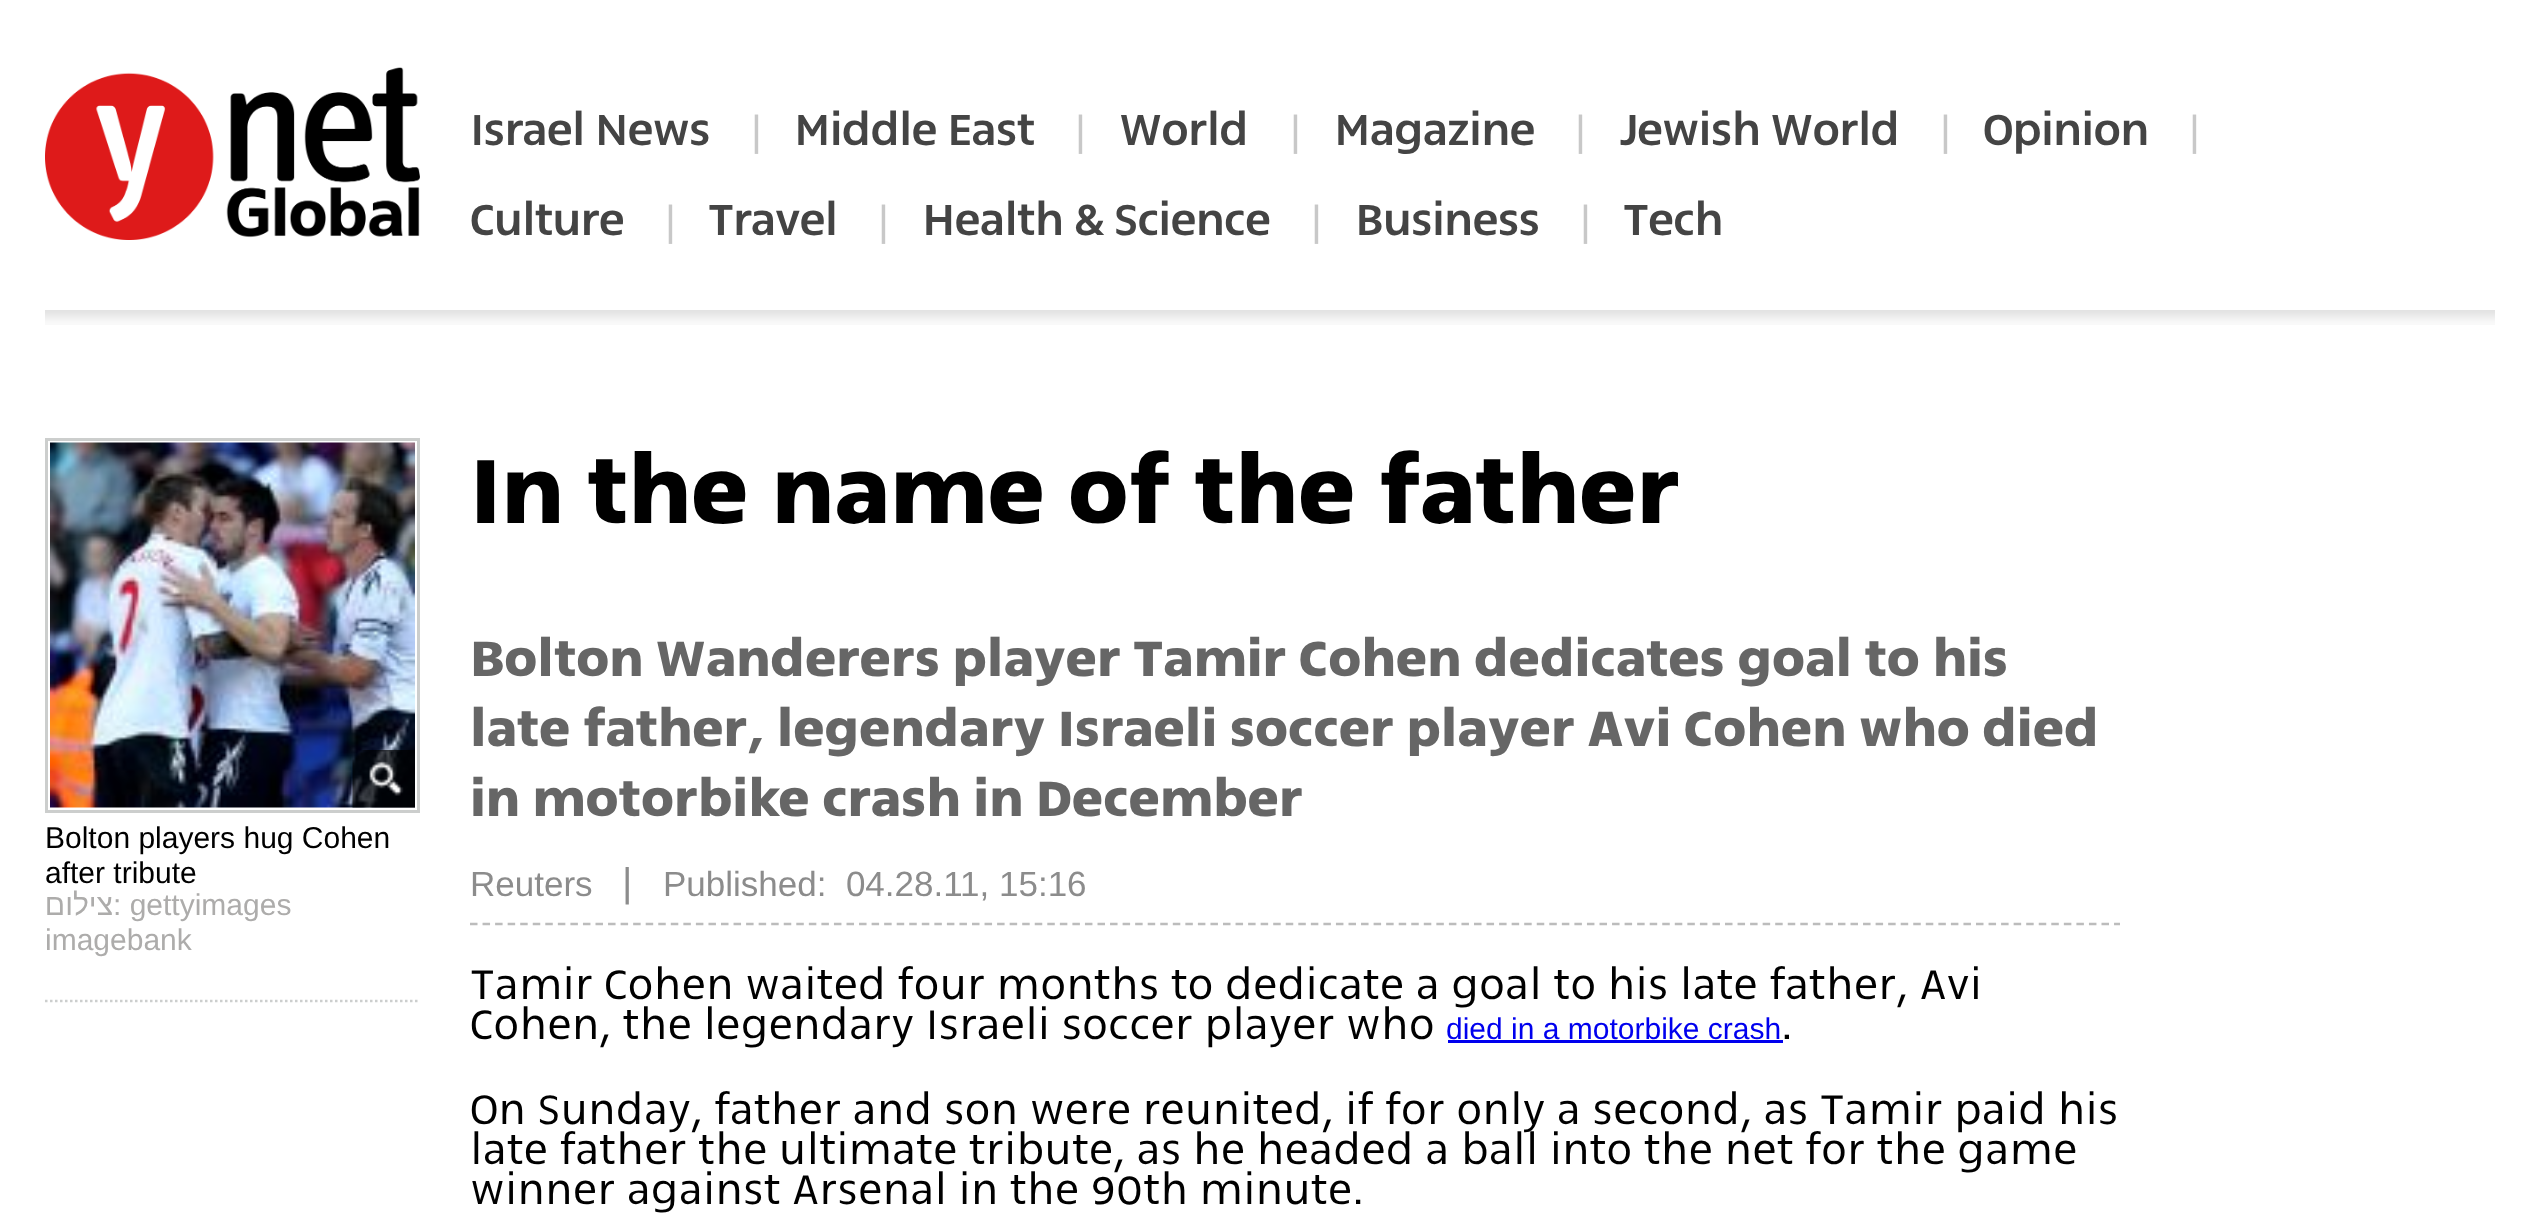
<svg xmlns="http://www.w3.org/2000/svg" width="2538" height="1213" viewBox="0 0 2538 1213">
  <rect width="100%" height="100%" fill="#fff"/>
  <image x="45" y="67" width="375" height="173" href="img/1.png"/>
  <image x="45" y="310" width="2450" height="15" href="img/2.png"/>
  <path d="M46.5 439.5h372v372H46.5z" fill="none" stroke="#cccecd" stroke-width="3"/>
  <image x="50" y="442" width="365" height="366" href="img/3.png"/>
  <image x="352" y="750" width="63" height="58" href="img/4.png"/>
  <path d="M45 1001H420" fill="none" stroke="#cccecd" stroke-width="2.5" stroke-dasharray="2.5 2.5"/>
  <path d="M470 924H2120" fill="none" stroke="#bcbcbc" stroke-width="2.5" stroke-dasharray="7.5 5.05"/>
  <path d="M1448 1040h335v3H1448z" fill="#00e"/>
  <text x="470" y="145" font-family="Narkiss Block" font-size="52.5" font-weight="500" letter-spacing="-1.25" fill="#444">Israel News</text>
  <text x="751" y="145" font-family="Liberation Sans" font-size="42" fill="#c8c8c8">|</text>
  <text x="794" y="145" font-family="Narkiss Block" font-size="52.5" font-weight="500" letter-spacing="-1.25" fill="#444">Middle East</text>
  <text x="1075" y="145" font-family="Liberation Sans" font-size="42" fill="#c8c8c8">|</text>
  <text x="1119" y="145" font-family="Narkiss Block" font-size="52.5" font-weight="500" letter-spacing="-1.25" fill="#444">World</text>
  <text x="1290" y="145" font-family="Liberation Sans" font-size="42" fill="#c8c8c8">|</text>
  <text x="1334" y="145" font-family="Narkiss Block" font-size="52.5" font-weight="500" letter-spacing="-1.25" fill="#444">Magazine</text>
  <text x="1575" y="145" font-family="Liberation Sans" font-size="42" fill="#c8c8c8">|</text>
  <text x="1619" y="145" font-family="Narkiss Block" font-size="52.5" font-weight="500" letter-spacing="-1.25" fill="#444">Jewish World</text>
  <text x="1940" y="145" font-family="Liberation Sans" font-size="42" fill="#c8c8c8">|</text>
  <text x="1983" y="145" font-family="Narkiss Block" font-size="52.5" font-weight="500" letter-spacing="-1.25" fill="#444">Opinion</text>
  <text x="2189" y="145" font-family="Liberation Sans" font-size="42" fill="#c8c8c8">|</text>
  <text x="470" y="235" font-family="Narkiss Block" font-size="52.5" font-weight="500" letter-spacing="-1.25" fill="#444">Culture</text>
  <text x="665" y="235" font-family="Liberation Sans" font-size="42" fill="#c8c8c8">|</text>
  <text x="708" y="235" font-family="Narkiss Block" font-size="52.5" font-weight="500" letter-spacing="-1.25" fill="#444">Travel</text>
  <text x="878" y="235" font-family="Liberation Sans" font-size="42" fill="#c8c8c8">|</text>
  <text x="922" y="235" font-family="Narkiss Block" font-size="52.5" font-weight="500" letter-spacing="-1.25" fill="#444">Health &amp; Science</text>
  <text x="1311" y="235" font-family="Liberation Sans" font-size="42" fill="#c8c8c8">|</text>
  <text x="1355" y="235" font-family="Narkiss Block" font-size="52.5" font-weight="500" letter-spacing="-1.25" fill="#444">Business</text>
  <text x="1580" y="235" font-family="Liberation Sans" font-size="42" fill="#c8c8c8">|</text>
  <text x="1623" y="235" font-family="Narkiss Block" font-size="52.5" font-weight="500" letter-spacing="-1.25" fill="#444">Tech</text>
  <g font-family="Liberation Sans" font-size="30" fill="#000">
    <text x="45" y="848">Bolton players hug Cohen</text>
    <text x="45" y="883">after tribute</text>
  </g>
  <text x="113" y="915" font-family="Liberation Sans" font-size="30" direction="rtl" fill="#adacab">צילום</text>
  <g font-family="Liberation Sans" font-size="30" fill="#adacab">
    <text x="113" y="915">: gettyimages</text>
    <text x="45" y="950">imagebank</text>
  </g>
  <text x="470" y="523" font-family="Narkiss Block" font-size="110" font-weight="bold" fill="#000">In the name of the father</text>
  <g font-family="Narkiss Block" font-size="60" font-weight="bold" fill="#666">
    <text x="470" y="676">Bolton Wanderers player Tamir Cohen dedicates goal to his</text>
    <text x="470" y="746">late father, legendary Israeli soccer player Avi Cohen who died</text>
    <text x="470" y="816">in motorbike crash in December</text>
  </g>
  <text x="470" y="896" font-family="Liberation Sans" font-size="35" fill="#8c8c8c">Reuters</text>
  <text x="622" y="896" font-family="Liberation Sans" font-size="40" fill="#8c8c8c">|</text>
  <text x="663" y="896" font-family="Liberation Sans" font-size="35" fill="#8c8c8c" xml:space="preserve">Published:  04.28.11, 15:16</text>
  <g font-family="Narkiss Block" font-size="50" font-weight="300" fill="#000">
    <text x="470" y="999">Tamir Cohen waited four months to dedicate a goal to his late father, Avi</text>
    <text x="470" y="1039">Cohen, the legendary Israeli soccer player who</text>
  </g>
  <text x="1446" y="1039" font-family="Liberation Sans" font-size="30" fill="#00e">died in a motorbike crash</text>
  <g font-family="Narkiss Block" font-size="50" font-weight="300" fill="#000">
    <text x="1781" y="1039">.</text>
    <text x="470" y="1124">On Sunday, father and son were reunited, if for only a second, as Tamir paid his</text>
    <text x="470" y="1164">late father the ultimate tribute, as he headed a ball into the net for the game</text>
    <text x="470" y="1204">winner against Arsenal in the 90th minute.</text>
  </g>
</svg>
